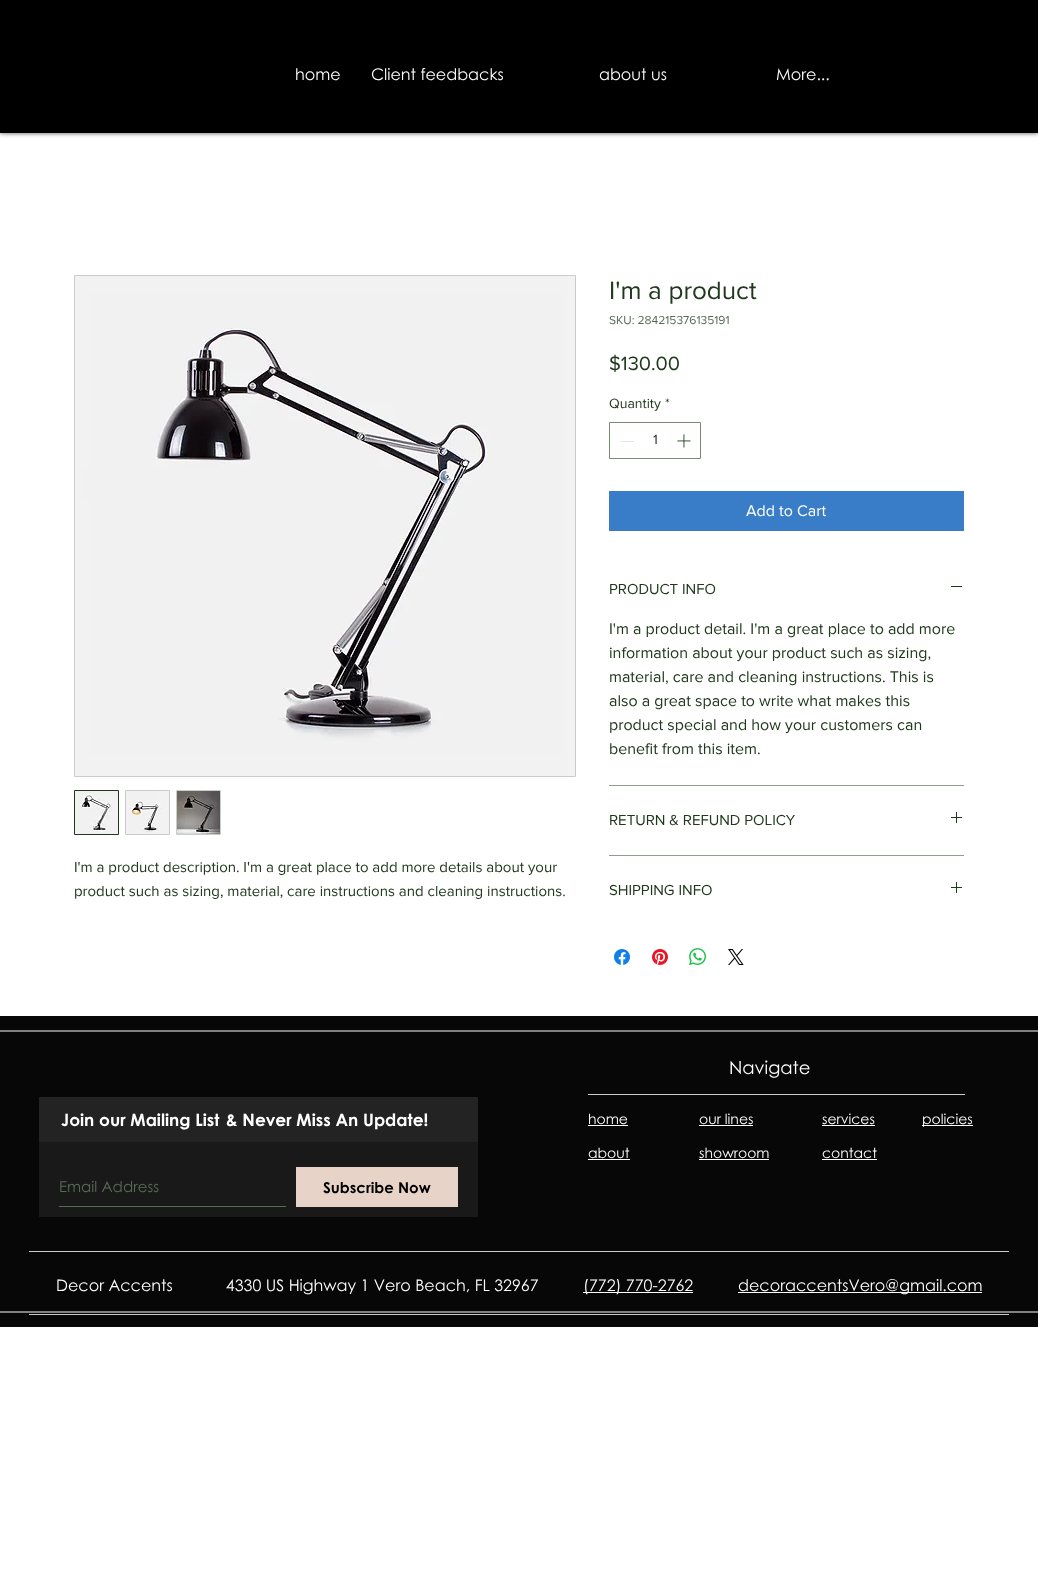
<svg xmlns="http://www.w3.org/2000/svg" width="1038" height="1578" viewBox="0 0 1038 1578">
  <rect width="100%" height="100%" fill="#fff"/>
  <path d="M0 0h1038v133H0z" fill="#000000b3" filter="blur(2.5px)"/>
  <path d="M0 0h1038v133H0z" fill="#000"/>
  <path d="M74.5 275.5h501v501H74.5z" fill="none" stroke="#c7cec7"/>
  <image x="75" y="276" width="500" height="500" href="img/1.png"/>
  <path d="M74.5 790.5h44v44H74.5z" fill="none" stroke="#20391d"/>
  <image x="75" y="791" width="43" height="43" href="img/2.png"/>
  <path d="M125.5 790.5h44v44H125.5z" fill="none" stroke="#c7cec7"/>
  <image x="126" y="791" width="43" height="43" href="img/3.png"/>
  <path d="M176.5 790.5h44v44H176.5z" fill="none" stroke="#c7cec7"/>
  <image x="177" y="791" width="43" height="43" href="img/4.png"/>
  <path d="M609.5 422.5h91v36H609.5z" fill="none" stroke="#798877"/>
  <path d="M621 441h13v1H621z" fill="#e3e3e3"/>
  <image x="677" y="434" width="14" height="14" href="img/5.png"/>
  <path d="M609 491h355v40H609z" fill="#397dc9"/>
  <path d="M609 785h355v1H609z" fill="#909c8e"/>
  <path d="M951 586h11v1H951z" fill="#20391d"/>
  <path d="M609 855h355v1H609z" fill="#909c8e"/>
  <image x="951" y="812" width="11" height="11" href="img/6.png"/>
  <image x="951" y="882" width="11" height="11" href="img/6.png"/>
  <image x="614" y="949" width="16" height="16" href="img/7.png"/>
  <image x="652" y="949" width="16" height="16" href="img/8.png"/>
  <image x="689" y="948" width="17" height="17" href="img/9.png"/>
  <image x="728" y="949" width="16" height="16" href="img/10.png"/>
  <path d="M0 1016h1038v311H0z" fill="#080707"/>
  <path d="M0 1030h1038v2H0z" fill="#818181"/>
  <path d="M0 1311h1038v2H0z" fill="#818181"/>
  <path d="M588 1094h377v1H588z" fill="#c7cec7"/>
  <path d="M39 1097h439v45H39z" fill="#242323"/>
  <path d="M39 1142h439v75H39z" fill="#1a1919"/>
  <path d="M59 1206h227v1H59z" fill="#586b56"/>
  <path d="M296 1167h162v40H296z" fill="#e8d3c8"/>
  <path d="M588 1125h40v1H588z" fill="#fff"/>
  <path d="M588 1159h42v1H588z" fill="#fff"/>
  <path d="M699 1125h54v1H699z" fill="#fff"/>
  <path d="M699 1159h70v1H699z" fill="#fff"/>
  <path d="M822 1125h53v1H822z" fill="#fff"/>
  <path d="M822 1159h55v1H822z" fill="#fff"/>
  <path d="M922 1125h51v1H922z" fill="#fff"/>
  <path d="M29 1251h980v1H29z" fill="#c7cec7"/>
  <path d="M583 1292h110v1H583z" fill="#fff"/>
  <path d="M738 1292h244v1H738z" fill="#fff"/>
  <path d="M29 1314h980v1H29z" fill="#c7cec7"/>
  <g font-family="Century Gothic" font-size="16" fill="#fff">
    <text x="295" y="80">home</text>
    <text x="371" y="80">Client feedbacks</text>
    <text x="599" y="80">about us</text>
    <text x="776" y="80">More...</text>
  </g>
  <g font-family="'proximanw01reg'" font-size="15" fill="#20391d">
    <text x="74" y="872">I'm a product description. I'm a great place to add more details about your</text>
    <text x="74" y="896">product such as sizing, material, care instructions and cleaning instructions.</text>
  </g>
  <text x="609" y="299" font-family="'proximanw01reg'" font-size="26" fill="#20391d">I'm a product</text>
  <text x="609" y="324" font-family="'proximanw01reg'" font-size="12" fill="#586b56">SKU: 284215376135191</text>
  <text x="609" y="370" font-family="'proximanw01reg'" font-size="20" fill="#20391d">$130.00</text>
  <g font-family="'proximanw01reg'" font-size="14" fill="#20391d">
    <text x="609" y="408">Quantity</text>
    <text x="665" y="408">*</text>
    <text x="653" y="444">1</text>
  </g>
  <text x="746" y="516" font-family="'proximanw01reg'" font-size="16" fill="#fff">Add to Cart</text>
  <text x="609" y="594" font-family="'proximanw01reg'" font-size="15" fill="#20391d">PRODUCT INFO</text>
  <g font-family="'proximanw01reg'" font-size="16" fill="#20391d">
    <text x="609" y="634">I'm a product detail. I'm a great place to add more</text>
    <text x="609" y="658">information about your product such as sizing,</text>
    <text x="609" y="682">material, care and cleaning instructions. This is</text>
    <text x="609" y="706">also a great space to write what makes this</text>
    <text x="609" y="730">product special and how your customers can</text>
    <text x="609" y="754">benefit from this item.</text>
  </g>
  <g font-family="'proximanw01reg'" font-size="15" fill="#20391d">
    <text x="609" y="825">RETURN &amp; REFUND POLICY</text>
    <text x="609" y="895">SHIPPING INFO</text>
  </g>
  <text x="729" y="1074" font-family="Century Gothic" font-size="18" fill="#fff">Navigate</text>
  <g font-family="Century Gothic" font-size="17" font-weight="bold" fill="#fff">
    <text x="61" y="1126">Join our Mailing List</text>
    <text x="226" y="1126">&amp; Never Miss An Update!</text>
  </g>
  <text x="59" y="1192" font-family="Century Gothic" font-size="15" fill="#586b56">Email Address</text>
  <text x="323" y="1193" font-family="Century Gothic" font-size="15" font-weight="bold" fill="#000">Subscribe Now</text>
  <g font-family="Century Gothic" font-size="14" fill="#fff">
    <text x="588" y="1124">home</text>
    <text x="588" y="1158">about</text>
    <text x="699" y="1124">our lines</text>
    <text x="699" y="1158">showroom</text>
    <text x="822" y="1124">services</text>
    <text x="822" y="1158">contact</text>
    <text x="922" y="1124">policies</text>
  </g>
  <g font-family="Century Gothic" font-size="16" fill="#fff">
    <text x="56" y="1291" xml:space="preserve">Decor Accents            4330 US Highway 1 Vero Beach, FL 32967</text>
    <text x="583" y="1291">(772) 770-2762</text>
    <text x="738" y="1291">decoraccentsVero@gmail.com</text>
  </g>
</svg>
